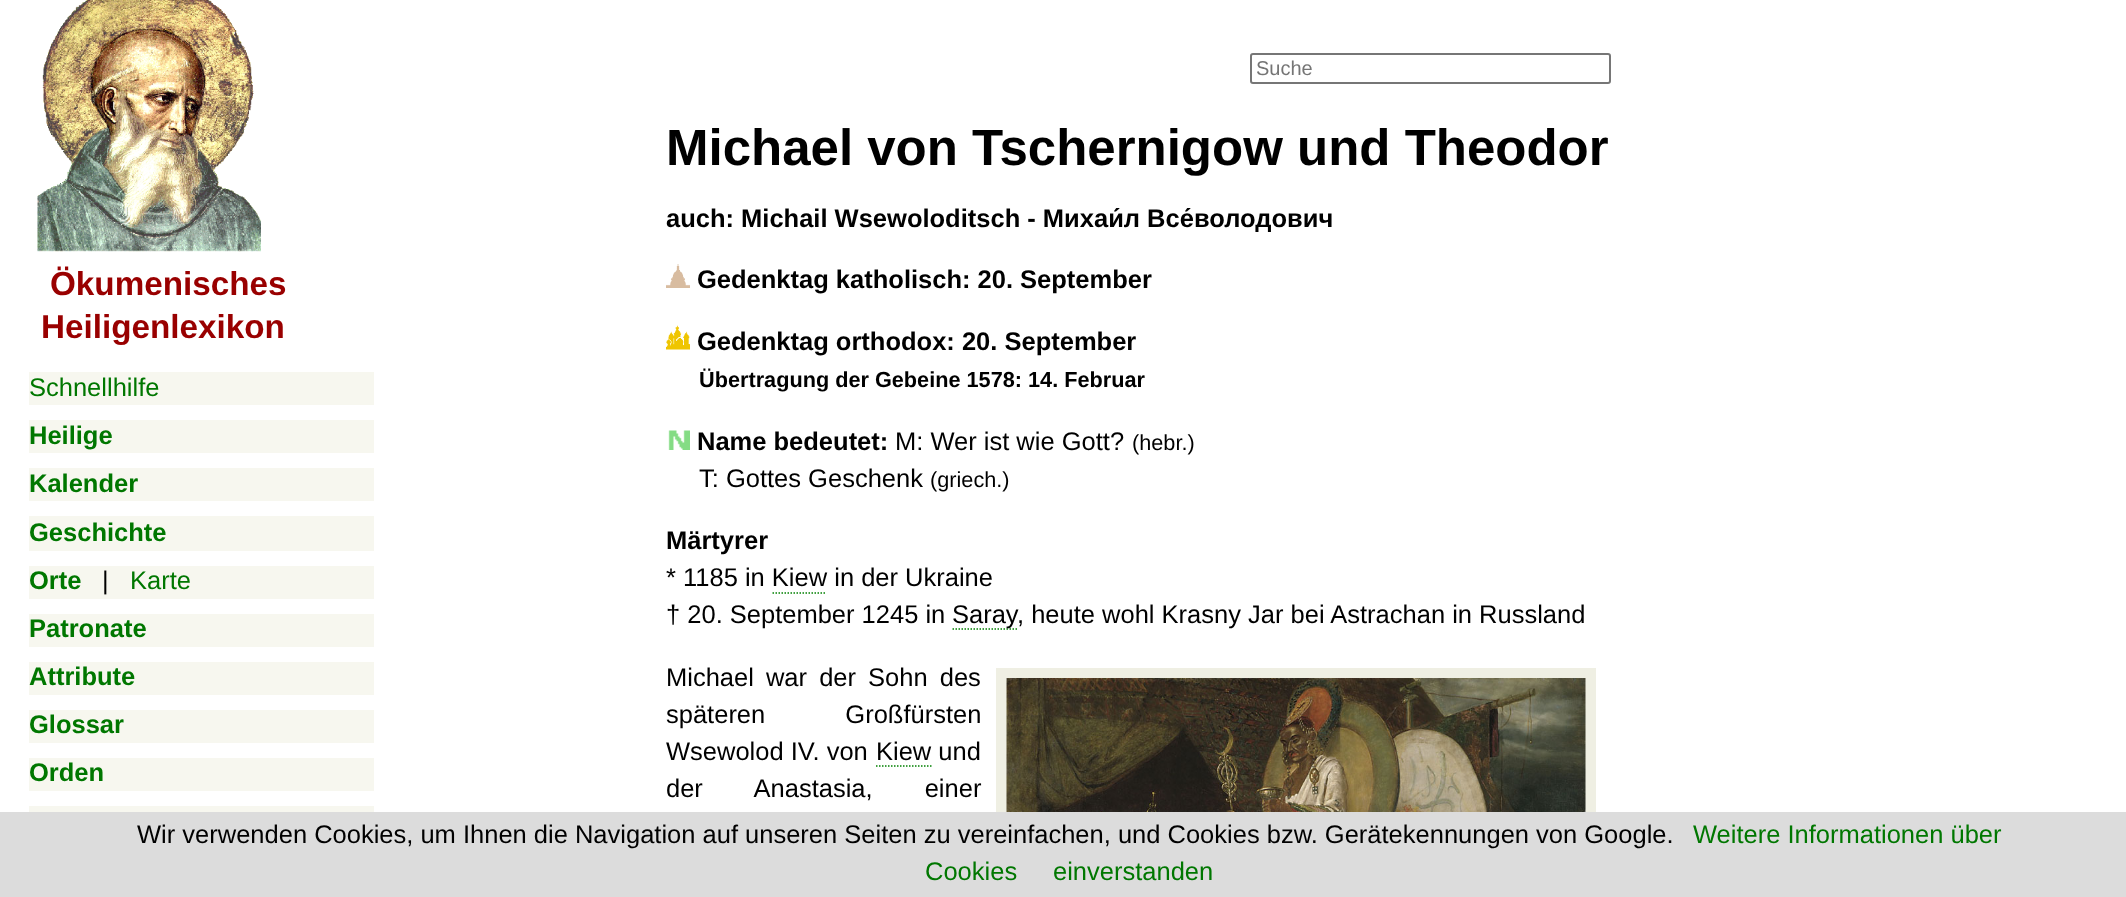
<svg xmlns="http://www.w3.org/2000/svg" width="2126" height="897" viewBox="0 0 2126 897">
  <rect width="100%" height="100%" fill="#fff"/>
  <image x="37" y="0" width="224" height="252" href="img/1.png"/>
  <path d="M29 372h345v33H29z" fill="#f7f7ef"/>
  <path d="M29 420h345v33H29z" fill="#f7f7ef"/>
  <path d="M29 468h345v33H29z" fill="#f7f7ef"/>
  <path d="M29 516h345v35H29z" fill="#f7f7ef"/>
  <path d="M29 566h345v33H29z" fill="#f7f7ef"/>
  <path d="M29 614h345v33H29z" fill="#f7f7ef"/>
  <path d="M29 662h345v33H29z" fill="#f7f7ef"/>
  <path d="M29 710h345v33H29z" fill="#f7f7ef"/>
  <path d="M29 758h345v33H29z" fill="#f7f7ef"/>
  <path d="M29 806h345v6H29z" fill="#f7f7ef"/>
  <rect x="1251" y="54" width="359" height="29" rx="2" fill="none" stroke="#767676" stroke-width="2"/>
  <image x="666" y="264" width="24" height="24" href="img/2.png"/>
  <image x="666" y="325" width="24" height="25" href="img/3.png"/>
  <image x="668" y="430" width="22" height="20" href="img/4.png"/>
  <path d="M772.5 593H826.5" fill="none" stroke="#008000" stroke-width="1.5" stroke-dasharray="1.5 1.5"/>
  <path d="M952.5 629H1017" fill="none" stroke="#008000" stroke-width="1.5" stroke-dasharray="1.5 1.5"/>
  <path d="M876 766H931.5" fill="none" stroke="#008000" stroke-width="1.5" stroke-dasharray="1.5 1.5"/>
  <path d="M996 668h600v144H996z" fill="#efefe3"/>
  <image x="1006" y="678" width="580" height="134" href="img/5.png"/>
  <path d="M0 812h2126v85H0z" fill="#dcdcdc"/>
  <g font-family="Liberation Sans" font-size="33.25" font-weight="bold" fill="#900">
    <text x="50" y="295">Ökumenisches</text>
    <text x="41" y="338">Heiligenlexikon</text>
  </g>
  <text x="29" y="396" font-family="Liberation Sans" font-size="25.5" fill="#070">Schnellhilfe</text>
  <g font-family="Liberation Sans" font-size="25.5" font-weight="bold" fill="#070">
    <text x="29" y="444">Heilige</text>
    <text x="29" y="492">Kalender</text>
    <text x="29" y="541">Geschichte</text>
    <text x="29" y="589">Orte</text>
  </g>
  <text x="102" y="589" font-family="Liberation Sans" font-size="25.5" fill="#000">|</text>
  <text x="130" y="589" font-family="Liberation Sans" font-size="25.5" fill="#070">Karte</text>
  <g font-family="Liberation Sans" font-size="25.5" font-weight="bold" fill="#070">
    <text x="29" y="637">Patronate</text>
    <text x="29" y="685">Attribute</text>
    <text x="29" y="733">Glossar</text>
    <text x="29" y="781">Orden</text>
  </g>
  <text x="1256" y="75" font-family="Liberation Sans" font-size="20" fill="#757575">Suche</text>
  <text x="666" y="165" font-family="Liberation Sans" font-size="51" font-weight="bold" fill="#000">Michael von Tschernigow und Theodor</text>
  <g font-family="Liberation Sans" font-size="25.5" font-weight="bold" fill="#000">
    <text x="666" y="227">auch: Michail Wsewoloditsch - Михаи́л Все́володович</text>
    <text x="697" y="288">Gedenktag katholisch: 20. September</text>
    <text x="697" y="350">Gedenktag orthodox: 20. September</text>
  </g>
  <text x="699" y="387" font-family="Liberation Sans" font-size="21.7" font-weight="bold" fill="#000">Übertragung der Gebeine 1578: 14. Februar</text>
  <text x="697" y="450" font-family="Liberation Sans" font-size="25.5" font-weight="bold" fill="#000">Name bedeutet:</text>
  <text x="895" y="450" font-family="Liberation Sans" font-size="25.5" fill="#000">M: Wer ist wie Gott?</text>
  <text x="1132" y="450" font-family="Liberation Sans" font-size="21.7" fill="#000">(hebr.)</text>
  <text x="699" y="487" font-family="Liberation Sans" font-size="25.5" fill="#000">T: Gottes Geschenk</text>
  <text x="930" y="487" font-family="Liberation Sans" font-size="21.7" fill="#000">(griech.)</text>
  <text x="666" y="549" font-family="Liberation Sans" font-size="25.5" font-weight="bold" fill="#000">Märtyrer</text>
  <g font-family="Liberation Sans" font-size="25.5" fill="#000">
    <text x="666" y="586">* 1185 in Kiew in der Ukraine</text>
    <text x="666" y="623">† 20. September 1245 in</text>
    <text x="952" y="623">Saray</text>
    <text x="1017" y="623">, heute wohl Krasny Jar bei Astrachan in Russland</text>
    <text x="666" y="686" word-spacing="5">Michael war der Sohn des</text>
    <text x="666" y="723" word-spacing="73">späteren Großfürsten</text>
    <text x="666" y="760">Wsewolod IV. von</text>
    <text x="876" y="760">Kiew und</text>
    <text x="666" y="797" word-spacing="45">der Anastasia, einer</text>
    <text x="137" y="843">Wir verwenden Cookies, um Ihnen die Navigation auf unseren Seiten zu vereinfachen, und Cookies bzw. Gerätekennungen von Google.</text>
  </g>
  <g font-family="Liberation Sans" font-size="25.5" fill="#070">
    <text x="1693" y="843">Weitere Informationen über</text>
    <text x="925" y="880">Cookies</text>
    <text x="1053" y="880">einverstanden</text>
  </g>
</svg>
